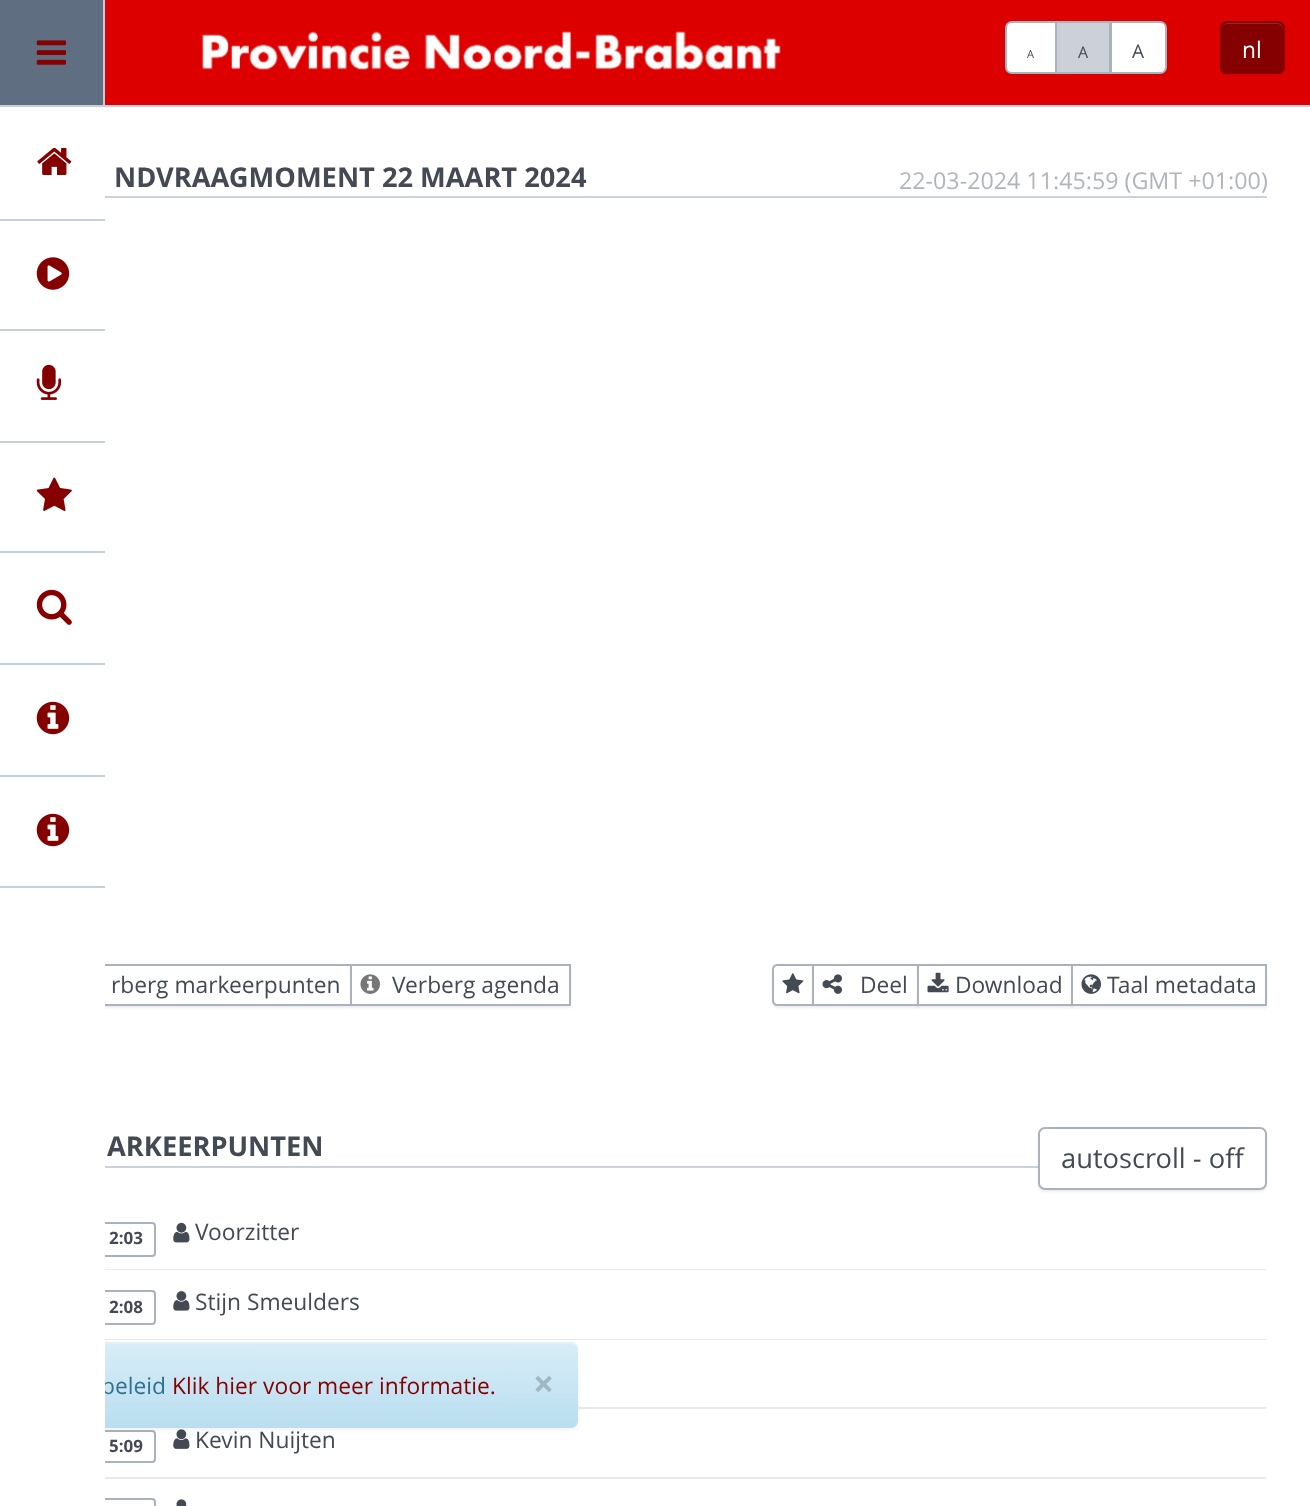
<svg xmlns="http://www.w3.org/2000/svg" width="1310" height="1506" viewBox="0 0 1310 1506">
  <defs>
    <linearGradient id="g1" gradientUnits="userSpaceOnUse" x1="289" y1="1342" x2="289" y2="1428"><stop offset="0" stop-color="#d9edf7"/><stop offset="1" stop-color="#b9def0"/></linearGradient>
  </defs>
  <rect width="100%" height="100%" fill="#fff"/>
  <path d="M103 0h2v105H103z" fill="#c6d0da"/>
  <path d="M0 0h103v105H0z" fill="#5f6f81"/>
  <image x="36" y="40" width="30" height="25" href="img/1.png"/>
  <path d="M0 886h105v2H0z" fill="#c6d0da"/>
  <image x="37" y="147" width="35" height="28" href="img/2.png"/>
  <path d="M0 219h105v2H0z" fill="#c6d0da"/>
  <image x="36" y="257" width="34" height="33" href="img/3.png"/>
  <path d="M0 329h105v2H0z" fill="#c6d0da"/>
  <image x="36" y="364" width="26" height="36" href="img/4.png"/>
  <path d="M0 441h105v2H0z" fill="#c6d0da"/>
  <image x="36" y="477" width="36" height="34" href="img/5.png"/>
  <path d="M0 551h105v2H0z" fill="#c6d0da"/>
  <image x="36" y="589" width="36" height="36" href="img/6.png"/>
  <path d="M0 663h105v2H0z" fill="#c6d0da"/>
  <image x="36" y="701" width="34" height="34" href="img/7.png"/>
  <path d="M0 775h105v2H0z" fill="#c6d0da"/>
  <image x="36" y="813" width="34" height="34" href="img/7.png"/>
  <path d="M105 0h1205v105H105z" fill="#d00"/>
  <path d="M0 105h1310v2H0z" fill="#c6d0da"/>
  <image x="201" y="31" width="580" height="40" href="img/8.png"/>
  <rect x="1005" y="23" width="52" height="52" rx="7" fill="#00000012" filter="blur(1px)"/>
  <path d="M1012 22H1056V73H1012C1008.5 73 1006 70.5 1006 67V28C1006 24.5 1008.5 22 1012 22Z" fill="#fff" stroke="#aab2bd" stroke-width="2"/>
  <rect x="1110" y="23" width="57" height="52" rx="7" fill="#00000012" filter="blur(1px)"/>
  <path d="M1111 22H1160C1163.5 22 1166 24.5 1166 28V67C1166 70.5 1163.5 73 1160 73H1111Z" fill="#fff" stroke="#aab2bd" stroke-width="2"/>
  <path d="M1056 22h54v51H1056z" fill="#ccd1d9" stroke="#aab2bd" stroke-width="2"/>
  <rect x="1220" y="23" width="65" height="52" rx="7" fill="#00000012" filter="blur(1px)"/>
  <rect x="1220" y="21" width="65" height="53" rx="7" fill="#850000"/>
  <path d="M1227 24H1278C1280 24 1283 27 1283 30C1283 21 1277 23 1270 23H1236C1228 23 1222 21 1222 30C1222 27 1224 24 1227 24Z" fill="#972626"/>
  <rect x="1221" y="22" width="63" height="51" rx="6" fill="none" stroke="#850000" stroke-width="2"/>
  <path d="M105 196h1162v2H105z" fill="#ccd1d9"/>
  <rect x="44" y="966" width="308" height="42" rx="5" fill="#00000012" filter="blur(1px)"/>
  <path d="M105 966h245v38H105z" fill="#fff"/>
  <path d="M45 965h306v40H45z" fill="none" stroke="#aab2bd" stroke-width="2"/>
  <path d="M350 966h221v42H350z" fill="#00000012" filter="blur(1px)"/>
  <path d="M351 965h219v40H351z" fill="#fff" stroke="#aab2bd" stroke-width="2"/>
  <image x="360" y="974" width="20" height="20" href="img/9.png"/>
  <rect x="772" y="966" width="42" height="42" rx="5" fill="#00000012" filter="blur(1px)"/>
  <path d="M777 965H813V1005H777C775 1005 773 1003 773 1001V969C773 967 775 965 777 965Z" fill="#fff" stroke="#aab2bd" stroke-width="2"/>
  <image x="782" y="973" width="22" height="21" href="img/10.png"/>
  <path d="M812 966h107v42H812z" fill="#00000012" filter="blur(1px)"/>
  <path d="M813 965h105v40H813z" fill="#fff" stroke="#aab2bd" stroke-width="2"/>
  <image x="822" y="974" width="20" height="20" href="img/11.png"/>
  <path d="M917 966h156v42H917z" fill="#00000012" filter="blur(1px)"/>
  <path d="M918 965h154v40H918z" fill="#fff" stroke="#aab2bd" stroke-width="2"/>
  <image x="927" y="972" width="22" height="21" href="img/12.png"/>
  <path d="M1071 966h196v42H1071z" fill="#00000012" filter="blur(1px)"/>
  <path d="M1072 965h194v40H1072z" fill="#fff" stroke="#aab2bd" stroke-width="2"/>
  <image x="1081" y="974" width="20" height="20" href="img/13.png"/>
  <path d="M105 1166h933v2H105z" fill="#ccd1d9"/>
  <rect x="1038" y="1129" width="229" height="63" rx="7" fill="#00000012" filter="blur(1px)"/>
  <rect x="1039" y="1128" width="227" height="61" rx="6" fill="#fff" stroke="#aab2bd" stroke-width="2"/>
  <rect x="64" y="1223" width="91" height="33" rx="3" fill="none" stroke="#aab2bd" stroke-width="2"/>
  <image x="173" y="1222" width="17" height="21" href="img/14.png"/>
  <path d="M44 1269H1267L1265 1270H46Z" fill="#e6e9ed"/>
  <rect x="64" y="1291" width="91" height="33" rx="3" fill="none" stroke="#aab2bd" stroke-width="2"/>
  <image x="173" y="1291" width="17" height="20" href="img/15.png"/>
  <path d="M44 1339H1267L1265 1340H46Z" fill="#e6e9ed"/>
  <path d="M44 1407H1267L1265 1409H46Z" fill="#e6e9ed"/>
  <rect x="64" y="1431" width="91" height="31" rx="3" fill="none" stroke="#aab2bd" stroke-width="2"/>
  <image x="173" y="1429" width="17" height="20" href="img/16.png"/>
  <path d="M44 1477H1267L1265 1479H46Z" fill="#e6e9ed"/>
  <rect x="64" y="1499" width="91" height="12" rx="3" fill="none" stroke="#aab2bd" stroke-width="2"/>
  <image x="176" y="1499" width="11" height="7" href="img/17.png"/>
  <rect y="1344" width="578" height="86" rx="7" fill="#0000000d" filter="blur(2px)"/>
  <rect y="1342" width="578" height="86" rx="7" fill="url(#g1)"/>
  <path d="M7 1344H570C574 1344 578 1347 578 1351C578 1347 576 1342 571 1342H7C2 1342 0 1347 0 1351C0 1347 3 1344 7 1344Z" fill="#ffffff40"/>
  <text x="1027" y="58" font-family="Open Sans" font-size="11" fill="#434a54">A</text>
  <text x="1078" y="58" font-family="Open Sans" font-size="16" fill="#434a54">A</text>
  <text x="1132" y="58" font-family="Open Sans" font-size="19" fill="#434a54">A</text>
  <text x="1242" y="58" font-family="Open Sans" font-size="22.75" fill="#fff">nl</text>
  <text x="114" y="187" font-family="Open Sans" font-size="27.25" font-weight="bold" fill="#434a54">NDVRAAGMOMENT 22 MAART 2024</text>
  <text x="899" y="189" font-family="Open Sans" font-size="23.25" fill="#afb5bc">22-03-2024 11:45:59 (GMT +01:00)</text>
  <g font-family="Open Sans" font-size="22.75" fill="#434a54">
    <text x="111" y="993">rberg markeerpunten</text>
    <text x="392" y="993">Verberg agenda</text>
    <text x="860" y="993">Deel</text>
    <text x="955" y="993">Download</text>
    <text x="1107" y="993">Taal metadata</text>
  </g>
  <text x="107" y="1156" font-family="Open Sans" font-size="27.25" font-weight="bold" fill="#434a54">ARKEERPUNTEN</text>
  <text x="1061" y="1168" font-family="Open Sans" font-size="27.25" fill="#434a54">autoscroll - off</text>
  <text x="109" y="1244" font-family="Open Sans" font-size="17" font-weight="bold" fill="#434a54">2:03</text>
  <text x="195" y="1240" font-family="Open Sans" font-size="22.75" fill="#434a54">Voorzitter</text>
  <text x="109" y="1313" font-family="Open Sans" font-size="17" font-weight="bold" fill="#434a54">2:08</text>
  <text x="195" y="1310" font-family="Open Sans" font-size="22.75" fill="#434a54">Stijn Smeulders</text>
  <text x="109" y="1452" font-family="Open Sans" font-size="17" font-weight="bold" fill="#434a54">5:09</text>
  <text x="195" y="1448" font-family="Open Sans" font-size="22.75" fill="#434a54">Kevin Nuijten</text>
  <text x="101" y="1394" font-family="Open Sans" font-size="22.75" fill="#31708f">beleid</text>
  <path d="M0 964h105v542H0z" fill="#fff"/>
  <text x="172" y="1394" font-family="Open Sans" font-size="22.75" fill="#850000">Klik hier voor meer informatie.</text>
  <text x="533" y="1397" font-family="Open Sans" font-size="37" font-weight="bold" fill="#a1b8c3">×</text>
</svg>
